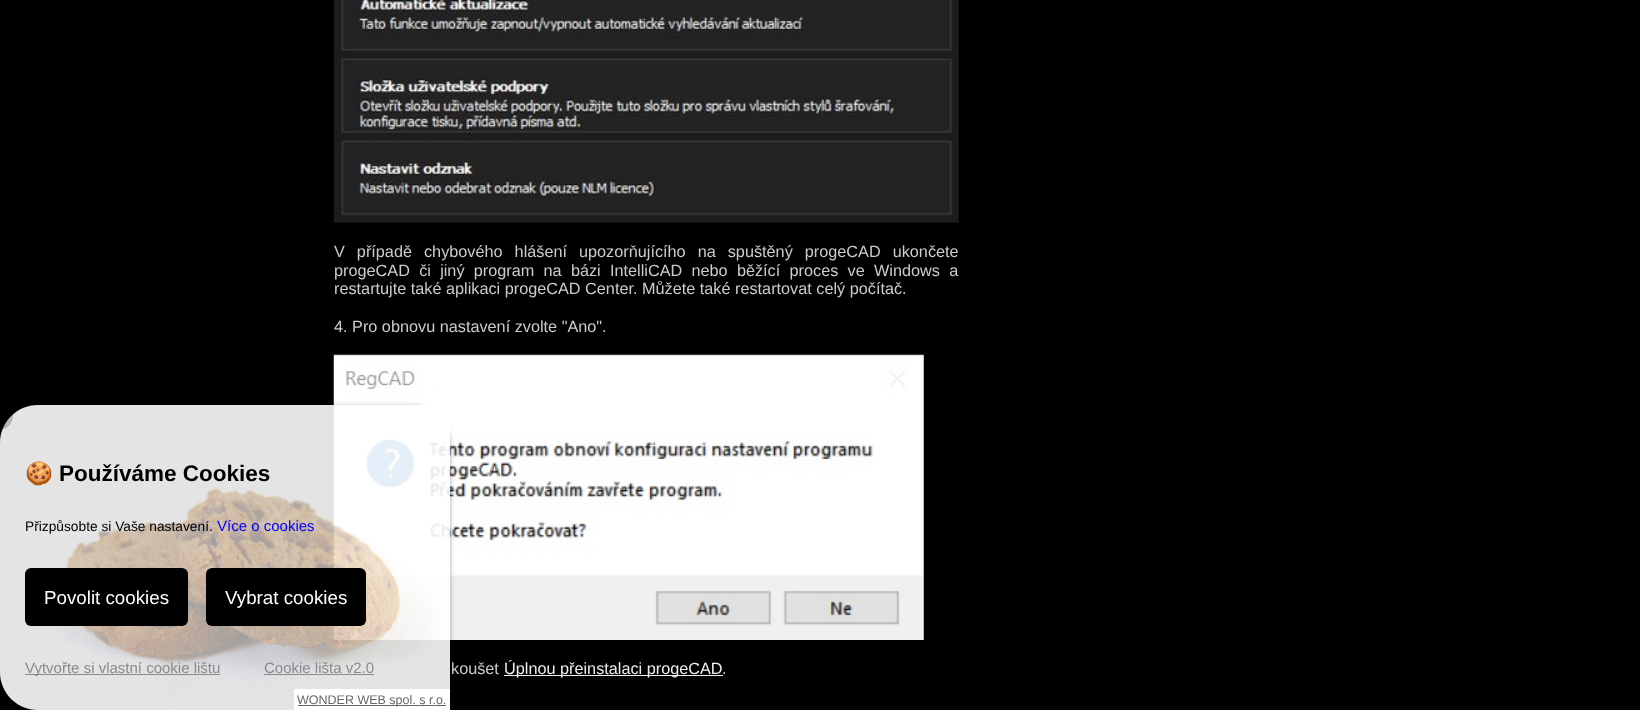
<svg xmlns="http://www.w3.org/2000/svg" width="1640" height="710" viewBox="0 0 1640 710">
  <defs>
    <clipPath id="clip1"><path d="M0 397H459V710H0ZM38 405H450V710H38C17 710 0 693 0 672V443C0 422 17 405 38 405Z" clip-rule="evenodd"/></clipPath>
  </defs>
  <rect width="100%" height="100%" fill="#000"/>
  <image x="333" y="353" width="591" height="287" href="img/3.png"/>
  <g clip-path="url(#clip1)">
    <rect y="406" width="450" height="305" rx="38" fill="#00000054" filter="blur(2.5px)"/>
  </g>
  <path d="M38 405H450V710H38C17 710 0 693 0 672V443C0 422 17 405 38 405Z" fill="#ffffffd9"/>
  <image x="0" y="405" width="450" height="305" href="img/1.png"/>
  <rect x="-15" y="389" width="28" height="41" rx="14.5" fill="#00000033"/>
  <rect x="25" y="568" width="163" height="58" rx="6" fill="#000"/>
  <rect x="206" y="568" width="160" height="58" rx="6" fill="#000"/>
  <path d="M25 674h195v1H25z" fill="#8a8a8a"/>
  <path d="M264 674h110v1H264z" fill="#8a8a8a"/>
  <path d="M294 689h156v21H294z" fill="#fff"/>
  <path d="M298 705h148v1H298z" fill="#666"/>
  <image x="333" y="0" width="626" height="223" href="img/2.png"/>
  <path d="M504 675h219v1H504z" fill="#eee"/>
  <text x="25" y="481" font-family="Noto Color Emoji" font-size="22.5" font-weight="bold" fill="#000">🍪</text>
  <text x="59" y="481" font-family="Liberation Sans" font-size="22.5" font-weight="bold" fill="#000">Používáme Cookies</text>
  <text x="25" y="531" font-family="Liberation Sans" font-size="13.75" fill="#000">Přizpůsobte si Vaše nastavení.</text>
  <text x="217" y="531" font-family="Liberation Sans" font-size="15" fill="#0400ff">Více o cookies</text>
  <g font-family="Liberation Sans" font-size="18.75" fill="#fff">
    <text x="44" y="604">Povolit cookies</text>
    <text x="225" y="604">Vybrat cookies</text>
  </g>
  <g font-family="Liberation Sans" font-size="15" fill="#8a8a8a">
    <text x="25" y="673">Vytvořte si vlastní cookie lištu</text>
    <text x="264" y="673">Cookie lišta v2.0</text>
  </g>
  <text x="297" y="704" font-family="Liberation Sans" font-size="12.5" fill="#666">WONDER WEB spol. s r.o.</text>
  <g font-family="Liberation Sans" font-size="16.25" fill="#ccc">
    <text x="334" y="257" word-spacing="7.5">V případě chybového hlášení upozorňujícího na spuštěný progeCAD ukončete</text>
    <text x="334" y="276" word-spacing="4.75">progeCAD či jiný program na bázi IntelliCAD nebo běžící proces ve Windows a</text>
    <text x="334" y="294">restartujte také aplikaci progeCAD Center. Můžete také restartovat celý počítač.</text>
    <text x="334" y="332">4. Pro obnovu nastavení zvolte "Ano".</text>
    <text x="451" y="674">koušet</text>
  </g>
  <text x="504" y="674" font-family="Liberation Sans" font-size="16.25" fill="#eee">Úplnou přeinstalaci progeCAD</text>
  <text x="722" y="674" font-family="Liberation Sans" font-size="16.25" fill="#ccc">.</text>
</svg>
